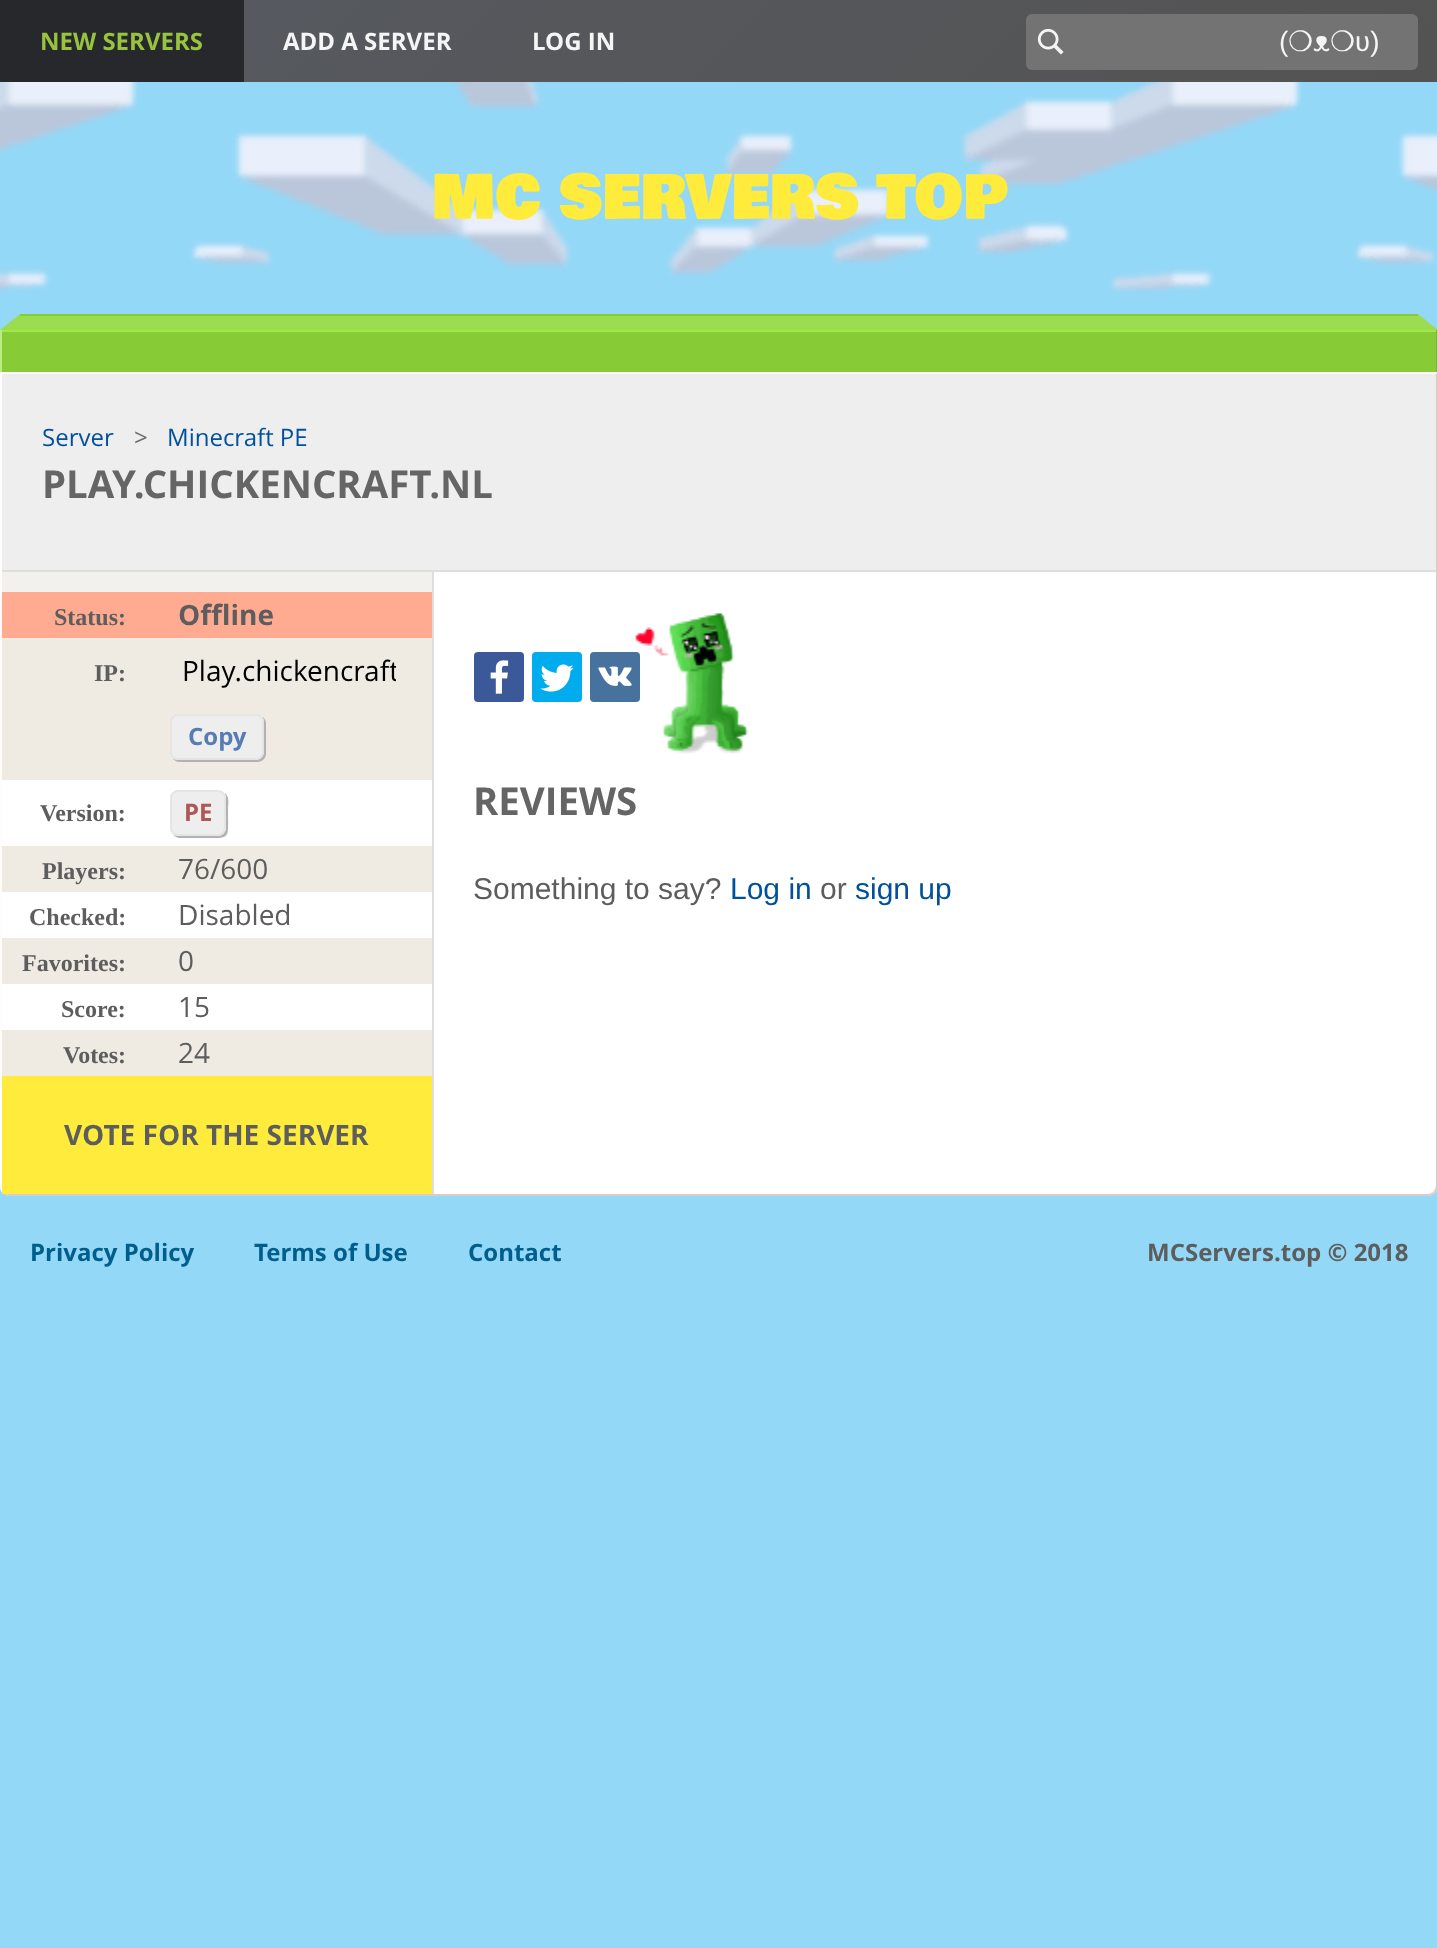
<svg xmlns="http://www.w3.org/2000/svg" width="1437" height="1948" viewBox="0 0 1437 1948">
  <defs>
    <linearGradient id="g1" gradientUnits="userSpaceOnUse" x1="339" y1="-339" x2="1099" y2="421"><stop offset="0" stop-color="#565a61"/><stop offset="1" stop-color="#545353"/></linearGradient>
    <clipPath id="clip1"><path d="M182 652h214v38H182z"/></clipPath>
  </defs>
  <rect width="100%" height="100%" fill="#94d8f7"/>
  <image x="0" y="82" width="1437" height="211" href="img/1.png"/>
  <path d="M0 0h1437v82H0z" fill="url(#g1)"/>
  <path d="M0 0h244v82H0z" fill="#1e2022d9"/>
  <rect x="1026" y="14" width="392" height="56" rx="6" fill="#737373"/>
  <image x="1037" y="28" width="27" height="27" href="img/2.png"/>
  <path d="M20 314V330H0Z" fill="#9cdc50"/>
  <path d="M20 316h1398v14H20z" fill="#9cdc50"/>
  <path d="M20 314h1398v2H20z" fill="#87cc37"/>
  <path d="M1418 330V314L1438 330Z" fill="#9cdc50"/>
  <path d="M2 332h1434v40H2z" fill="#87cc37"/>
  <path d="M0 330h1437v2H0z" fill="#a0ea46"/>
  <path d="M1436 330h1v42H1436z" fill="#81ad4f"/>
  <path d="M0 330h2v42H0z" fill="#bbec81"/>
  <path d="M0 372H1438V1186C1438 1191.5 1433.5 1196 1428 1196H10C4.5 1196 0 1191.5 0 1186Z" fill="#eee"/>
  <path d="M0 372L2 374H1436L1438 372Z" fill="#fdfdfd"/>
  <path d="M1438 372L1436 374V1186C1436 1188 1435 1190 1434 1192L1435 1193C1437 1192 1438 1189 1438 1186Z" fill="#d7ccc8"/>
  <path d="M10 1196H1428C1431 1196 1434 1195 1435 1193L1434 1192C1432 1193 1430 1194 1428 1194H10C8 1194 6 1193 4 1192L3 1193C4 1195 7 1196 10 1196Z" fill="#d7cdc9"/>
  <path d="M2 374L0 372V1186C0 1189 1 1192 3 1193L4 1192C3 1190 2 1188 2 1186Z" fill="#fffcfa"/>
  <path d="M432 570H1436V1184C1436 1189.5 1431.5 1194 1426 1194H432Z" fill="#fff"/>
  <path d="M2 570h1434v2H2z" fill="#dedede"/>
  <path d="M2 572h430v20H2z" fill="#f3f1ed"/>
  <path d="M432 570h2v624H432z" fill="#dedede"/>
  <path d="M2 780h430v250H2z" fill="#fff"/>
  <path d="M2 592h430v46H2z" fill="#ffab91"/>
  <path d="M2 638h430v142H2z" fill="#efebe3"/>
  <path d="M173 759C175 761 177 762 180 762H258C262 762 266 758 266 754V724C266 721 265 719 263 717C263 719 264 720 264 722V752C264 756 260 760 256 760H178C176 760 175 759 173 759Z" fill="#b2b2b2"/>
  <rect x="171" y="715" width="92" height="44" rx="7" fill="#eee" stroke="#e5e5e5" stroke-width="2"/>
  <path d="M173 835C177 839 182 838 187 838H200C232 838 228 841 228 810C228 805 230 797 225 793C225 795 226 796 226 798V828C226 832 222 836 218 836H178C176 836 175 835 173 835Z" fill="#b2b2b2"/>
  <rect x="171" y="791" width="54" height="44" rx="7" fill="#eee" stroke="#e5e5e5" stroke-width="2"/>
  <path d="M2 846h430v46H2z" fill="#efebe3"/>
  <path d="M2 938h430v46H2z" fill="#efebe3"/>
  <path d="M2 1030h430v46H2z" fill="#efebe3"/>
  <path d="M2 1076h430v118H2z" fill="#ffeb3b"/>
  <image x="634" y="613" width="115" height="141" href="img/3.png"/>
  <rect x="474" y="652" width="50" height="50" rx="4" fill="#3b5998"/>
  <image x="490" y="660" width="19" height="34" href="img/4.png"/>
  <rect x="532" y="652" width="50" height="50" rx="4" fill="#00aced"/>
  <image x="540" y="664" width="34" height="28" href="img/5.png"/>
  <rect x="590" y="652" width="50" height="50" rx="4" fill="#48729e"/>
  <image x="598" y="666" width="34" height="20" href="img/6.png"/>
  <text x="40" y="50" font-family="Open Sans" font-size="24" font-weight="bold" fill="#98c33e">NEW SERVERS</text>
  <g font-family="Open Sans" font-size="24" font-weight="bold" fill="#f5f5f5">
    <text x="283" y="50">ADD A SERVER</text>
    <text x="532" y="50">LOG IN</text>
  </g>
  <text x="1279" y="51" font-family="Liberation Sans" font-size="28" fill="#f5f5f5">(</text>
  <text x="1288" y="51" font-family="DejaVu Sans" font-size="28" fill="#f5f5f5">❍</text>
  <text x="1313" y="51" font-family="Liberation Sans" font-size="28" fill="#f5f5f5">ᴥ</text>
  <text x="1330" y="51" font-family="DejaVu Sans" font-size="28" fill="#f5f5f5">❍</text>
  <text x="1355" y="51" font-family="Liberation Sans" font-size="28" fill="#f5f5f5">ʋ)</text>
  <text x="431" y="218" font-family="Bowlby One SC" font-size="60" fill="#ffeb3b">MC SERVERS TOP</text>
  <text x="42" y="446" font-family="Open Sans" font-size="24" fill="#00509c">Server</text>
  <text x="134" y="446" font-family="Open Sans" font-size="24" fill="#6b6b6b">&gt;</text>
  <text x="167" y="446" font-family="Open Sans" font-size="24" fill="#00509c">Minecraft PE</text>
  <text x="42" y="498" font-family="Open Sans" font-size="38.4" font-weight="bold" fill="#656565">PLAY.CHICKENCRAFT.NL</text>
  <text x="54" y="625" font-family="Liberation Serif" font-size="24" font-weight="bold" fill="#5d5d5d">Status:</text>
  <text x="178" y="625" font-family="Open Sans" font-size="28" font-weight="bold" fill="#5d5d5d">Offline</text>
  <text x="94" y="681" font-family="Liberation Serif" font-size="24" font-weight="bold" fill="#5d5d5d">IP:</text>
  <g clip-path="url(#clip1)">
    <text x="182" y="681" font-family="Open Sans" font-size="28" fill="#000">Play.chickencraft</text>
  </g>
  <text x="188" y="745" font-family="Open Sans" font-size="24" font-weight="bold" fill="#577bb3">Copy</text>
  <text x="40" y="821" font-family="Liberation Serif" font-size="24" font-weight="bold" fill="#5d5d5d">Version:</text>
  <text x="184" y="821" font-family="Open Sans" font-size="24" font-weight="bold" fill="#af5656">PE</text>
  <text x="42" y="879" font-family="Liberation Serif" font-size="24" font-weight="bold" fill="#5d5d5d">Players:</text>
  <text x="178" y="879" font-family="Open Sans" font-size="28" fill="#5d5d5d">76/600</text>
  <text x="29" y="925" font-family="Liberation Serif" font-size="24" font-weight="bold" fill="#5d5d5d">Checked:</text>
  <text x="178" y="925" font-family="Open Sans" font-size="28" fill="#5d5d5d">Disabled</text>
  <text x="22" y="971" font-family="Liberation Serif" font-size="24" font-weight="bold" fill="#5d5d5d">Favorites:</text>
  <text x="178" y="971" font-family="Open Sans" font-size="28" fill="#5d5d5d">0</text>
  <text x="61" y="1017" font-family="Liberation Serif" font-size="24" font-weight="bold" fill="#5d5d5d">Score:</text>
  <text x="178" y="1017" font-family="Open Sans" font-size="28" fill="#5d5d5d">15</text>
  <text x="63" y="1063" font-family="Liberation Serif" font-size="24" font-weight="bold" fill="#5d5d5d">Votes:</text>
  <text x="178" y="1063" font-family="Open Sans" font-size="28" fill="#5d5d5d">24</text>
  <text x="64" y="1145" font-family="Open Sans" font-size="28" font-weight="bold" fill="#5d5d5d">VOTE FOR THE SERVER</text>
  <text x="473" y="815" font-family="Open Sans" font-size="38.4" font-weight="bold" fill="#656565">REVIEWS</text>
  <text x="473" y="899" font-family="Liberation Sans" font-size="30" fill="#5d5d5d">Something to say?</text>
  <text x="730" y="899" font-family="Liberation Sans" font-size="30" fill="#00509c">Log in</text>
  <text x="820" y="899" font-family="Liberation Sans" font-size="30" fill="#5d5d5d">or</text>
  <text x="855" y="899" font-family="Liberation Sans" font-size="30" fill="#00509c">sign up</text>
  <g font-family="Open Sans" font-size="24" font-weight="bold" fill="#005e8c">
    <text x="30" y="1261">Privacy Policy</text>
    <text x="254" y="1261">Terms of Use</text>
    <text x="468" y="1261">Contact</text>
  </g>
  <text x="1147" y="1261" font-family="Open Sans" font-size="24" font-weight="bold" fill="#5d5d5d">MCServers.top © 2018</text>
</svg>
